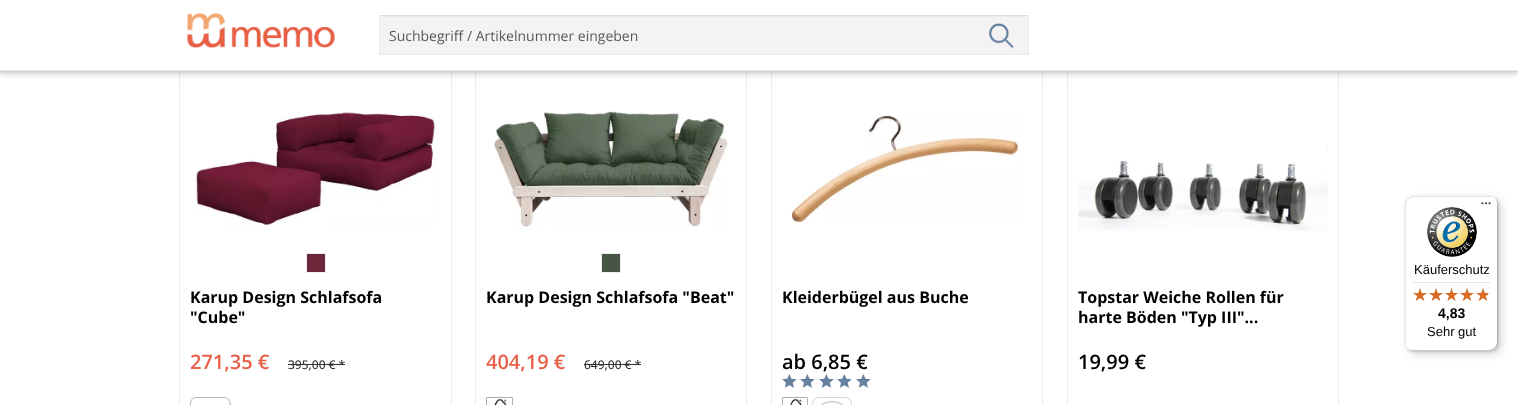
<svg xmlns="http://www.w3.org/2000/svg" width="1518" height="405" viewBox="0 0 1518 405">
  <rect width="100%" height="100%" fill="#fff"/>
  <path d="M179.5 -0.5h272v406H179.5z" fill="none" stroke="#ebebeb"/>
  <path d="M475.5 -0.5h271v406H475.5z" fill="none" stroke="#ebebeb"/>
  <path d="M771.5 -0.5h271v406H771.5z" fill="none" stroke="#ebebeb"/>
  <path d="M1067.5 -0.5h271v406H1067.5z" fill="none" stroke="#ebebeb"/>
  <path d="M-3 -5h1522v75H-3z" fill="#00000080" filter="blur(5px)"/>
  <path d="M0 0h1518v70H0z" fill="#fff"/>
  <path d="M0 70h1518v1H0z" fill="#ebebeb"/>
  <image x="187" y="13" width="148" height="35" href="img/1.png"/>
  <path d="M380 17h648v37H380z" fill="#f3f3f3"/>
  <path d="M380 16h648v1H380z" fill="#ebebeb"/>
  <path d="M379 15h650v1H379z" fill="#dedede"/>
  <path d="M1028 15h1v40H1028z" fill="#ebebeb"/>
  <path d="M379 54h650v1H379z" fill="#ebebeb"/>
  <path d="M379 15h1v40H379z" fill="#ebebeb"/>
  <image x="988" y="23" width="26" height="26" href="img/2.png"/>
  <image x="196" y="112" width="240" height="114" href="img/3.png"/>
  <path d="M306.5 253.5h19v19H306.5z" fill="#6b2639" stroke="#eee"/>
  <path d="M288 364h57v1H288z" fill="#333"/>
  <image x="190" y="397" width="41" height="8" href="img/4.png"/>
  <image x="494" y="110" width="234" height="117" href="img/5.png"/>
  <path d="M601.5 253.5h19v19H601.5z" fill="#475644" stroke="#eee"/>
  <path d="M584 364h57v1H584z" fill="#333"/>
  <image x="486" y="397" width="27" height="8" href="img/6.png"/>
  <image x="791" y="115" width="231" height="107" href="img/7.png"/>
  <image x="782" y="374" width="15" height="14" href="img/8.png"/>
  <image x="800" y="374" width="15" height="14" href="img/8.png"/>
  <image x="819" y="374" width="15" height="14" href="img/8.png"/>
  <image x="837" y="374" width="15" height="14" href="img/8.png"/>
  <image x="856" y="374" width="15" height="14" href="img/8.png"/>
  <image x="782" y="397" width="26" height="8" href="img/9.png"/>
  <image x="812" y="397" width="40" height="8" href="img/10.png"/>
  <image x="1078" y="146" width="250" height="85" href="img/11.png"/>
  <rect x="1408" y="199" width="93" height="155" rx="8" fill="#00000026" filter="blur(4px)"/>
  <rect x="1406" y="197" width="93" height="155" rx="8" fill="#00000026" filter="blur(1px)"/>
  <rect x="1405" y="196" width="93" height="155" rx="8" fill="#fff"/>
  <path d="M1414 197H1491C1493 197 1495 198 1497 200C1495 198 1493 196 1490 196H1413C1409 196 1405 200 1405 204V343C1405 346 1407 348 1409 350C1407 348 1406 346 1406 344V205C1406 201 1410 197 1414 197Z" fill="#e5e5e5"/>
  <path d="M1406 347C1408 349 1410 351 1413 351H1490C1494 351 1498 347 1498 343V204C1498 201 1496 199 1494 197C1496 199 1497 201 1497 203V342C1497 346 1493 350 1489 350H1412C1410 350 1408 349 1406 347Z" fill="#ccc"/>
  <path d="M1407 348C1408 350 1411 351 1413 351H1490C1494 351 1498 347 1498 343V204C1498 202 1497 199 1495 198C1496 199 1497 201 1497 203V342C1497 347 1494 350 1489 350H1412C1410 350 1408 349 1407 348Z" fill="#32323233"/>
  <image x="1481" y="202" width="10" height="3" href="img/12.png"/>
  <path d="M1407 348C1408 350 1411 351 1413 351H1490C1494 351 1498 347 1498 343V342C1498 347 1494 350 1490 350H1412C1410 350 1408 349 1407 348Z" fill="#ffffff4d"/>
  <image x="1427" y="207" width="50" height="50" href="img/13.png"/>
  <path d="M1413 282h77v1H1413z" fill="#e5e5e5"/>
  <image x="1413" y="288" width="14" height="13" href="img/14.png"/>
  <image x="1429" y="288" width="14" height="13" href="img/14.png"/>
  <image x="1445" y="288" width="13" height="13" href="img/15.png"/>
  <image x="1460" y="288" width="14" height="13" href="img/14.png"/>
  <image x="1476" y="288" width="14" height="13" href="img/14.png"/>
  <image x="1413" y="288" width="14" height="13" href="img/16.png"/>
  <image x="1429" y="288" width="14" height="13" href="img/16.png"/>
  <image x="1445" y="288" width="13" height="13" href="img/17.png"/>
  <image x="1460" y="288" width="14" height="13" href="img/16.png"/>
  <image x="1476" y="288" width="12" height="13" href="img/18.png"/>
  <text x="389" y="41" font-family="Open Sans" font-size="14" fill="#595959">Suchbegriff / Artikelnummer eingeben</text>
  <g font-family="Open Sans" font-size="16" font-weight="bold" fill="#000">
    <text x="190" y="303">Karup Design Schlafsofa</text>
    <text x="190" y="323">"Cube"</text>
  </g>
  <text x="190" y="369" font-family="Open Sans" font-size="20" font-weight="600" fill="#e95f47">271,35 €</text>
  <text x="288" y="369" font-family="Open Sans" font-size="12" font-weight="500" fill="#333">395,00 € *</text>
  <text x="486" y="303" font-family="Open Sans" font-size="16" font-weight="bold" fill="#000">Karup Design Schlafsofa "Beat"</text>
  <text x="486" y="369" font-family="Open Sans" font-size="20" font-weight="600" fill="#e95f47">404,19 €</text>
  <text x="584" y="369" font-family="Open Sans" font-size="12" font-weight="500" fill="#333">649,00 € *</text>
  <text x="782" y="303" font-family="Open Sans" font-size="16" font-weight="bold" fill="#000">Kleiderbügel aus Buche</text>
  <text x="782" y="369" font-family="Open Sans" font-size="20" font-weight="600" fill="#000">ab 6,85 €</text>
  <g font-family="Open Sans" font-size="16" font-weight="bold" fill="#000">
    <text x="1078" y="303">Topstar Weiche Rollen für</text>
    <text x="1078" y="323">harte Böden "Typ III"...</text>
  </g>
  <text x="1078" y="369" font-family="Open Sans" font-size="20" font-weight="600" fill="#000">19,99 €</text>
  <text x="1414" y="274" font-family="Liberation Sans" font-size="13" fill="#000">Käuferschutz</text>
  <text x="1438" y="318" font-family="Liberation Sans" font-size="14" font-weight="bold" fill="#000">4,83</text>
  <text x="1427" y="336" font-family="Liberation Sans" font-size="13" fill="#000">Sehr gut</text>
</svg>
